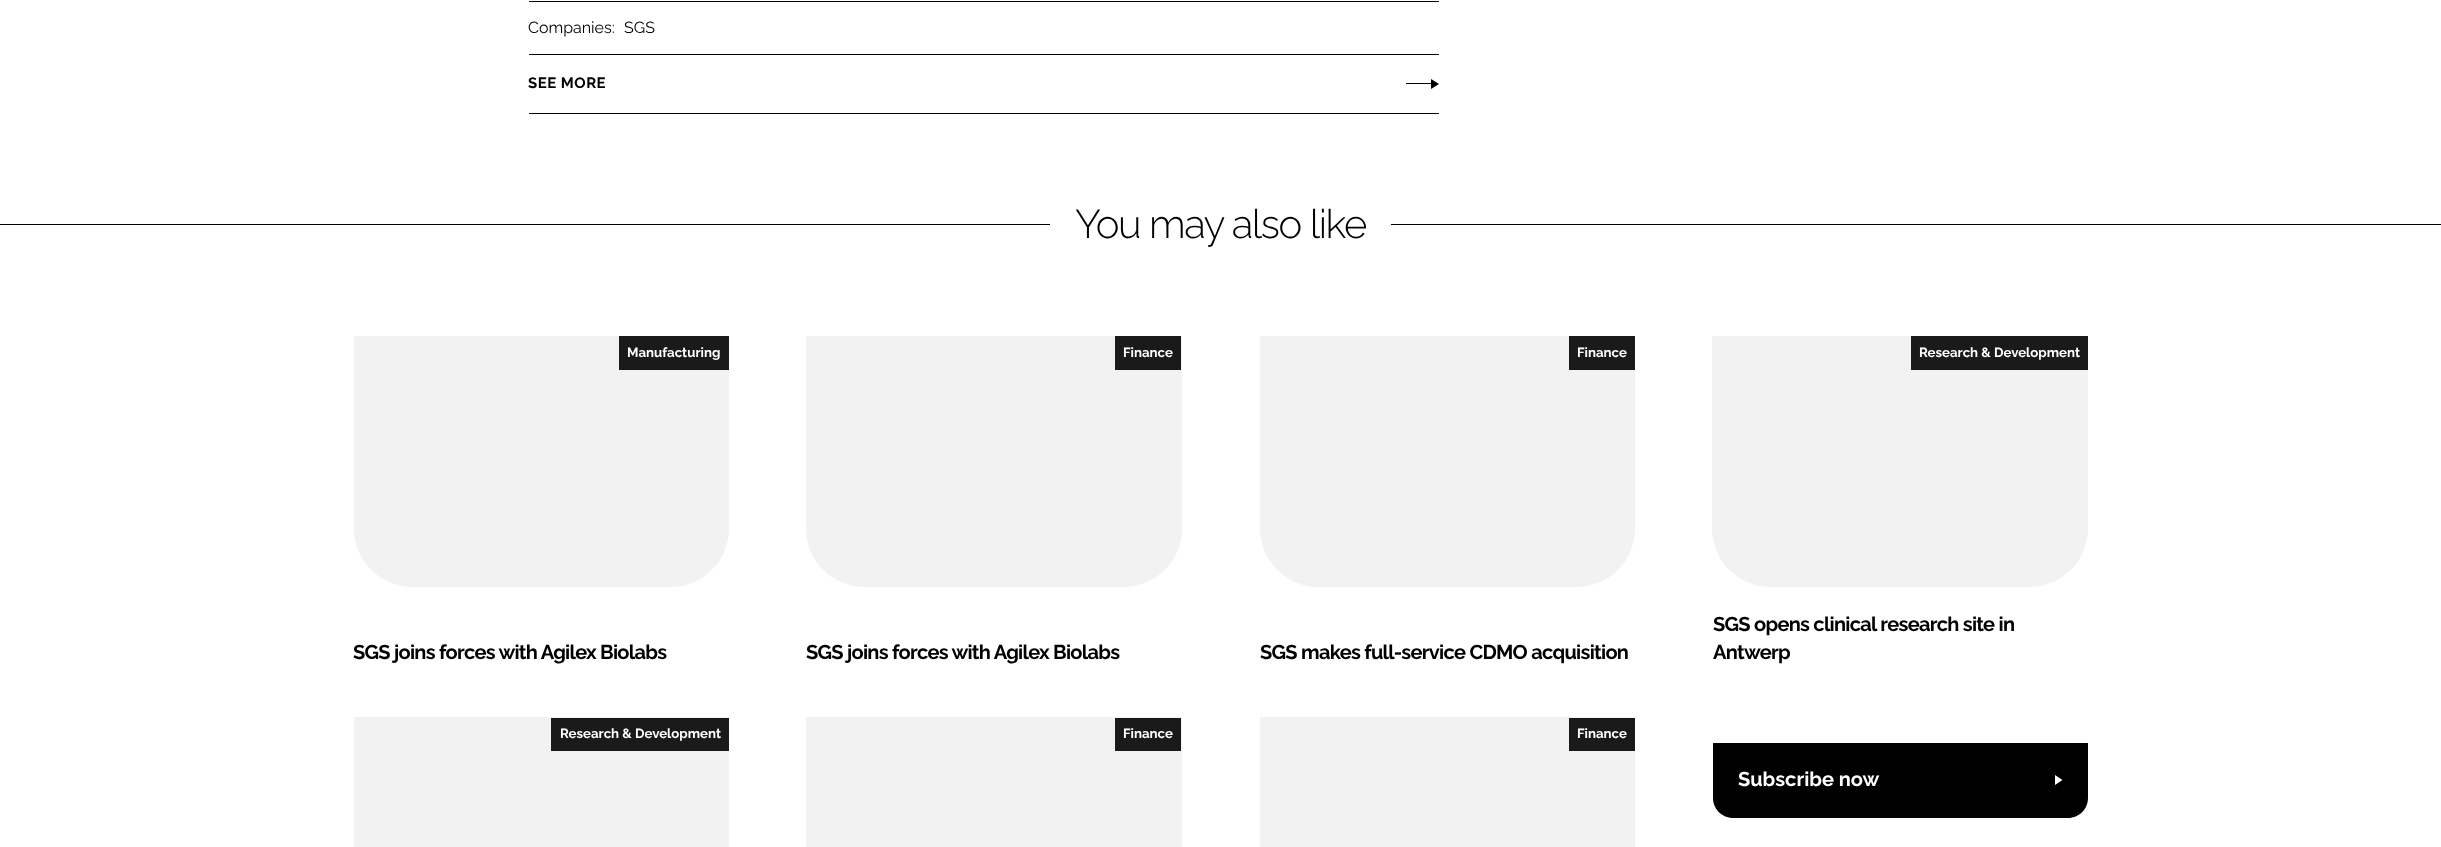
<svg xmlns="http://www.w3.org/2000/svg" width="2441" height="847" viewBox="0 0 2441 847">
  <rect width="100%" height="100%" fill="#fff"/>
  <path d="M529 1h910v1H529z" fill="#000"/>
  <path d="M529 54h910v1H529z" fill="#000"/>
  <path d="M529 113h910v1H529z" fill="#000"/>
  <path d="M1406 83h25v1H1406z" fill="#000"/>
  <path d="M1431 89V79L1439 84Z" fill="#000"/>
  <path d="M0 224h2441v1H0z" fill="#000"/>
  <path d="M1050 224h341v1H1050z" fill="#fff"/>
  <path d="M353.5 335.5H729.5V528C729.5 561 703 587.5 670 587.5H413C380 587.5 353.5 561 353.5 528Z" fill="#f2f2f2" stroke="#fff"/>
  <path d="M619 336h110v34H619z" fill="#1a1a1a"/>
  <path d="M805.5 335.5H1182.5V528C1182.5 561 1156 587.5 1123 587.5H865C832 587.5 805.5 561 805.5 528Z" fill="#f2f2f2" stroke="#fff"/>
  <path d="M1115 336h66v34H1115z" fill="#1a1a1a"/>
  <path d="M1259.5 335.5H1635.5V528C1635.5 561 1609 587.5 1576 587.5H1319C1286 587.5 1259.5 561 1259.5 528Z" fill="#f2f2f2" stroke="#fff"/>
  <path d="M1569 336h66v34H1569z" fill="#1a1a1a"/>
  <path d="M1711.5 335.5H2088.5V528C2088.5 561 2062 587.5 2029 587.5H1771C1738 587.5 1711.5 561 1711.5 528Z" fill="#f2f2f2" stroke="#fff"/>
  <path d="M1911 336h177v34H1911z" fill="#1a1a1a"/>
  <path d="M354 717h375v130H354z" fill="#f2f2f2"/>
  <path d="M551 718h178v33H551z" fill="#1a1a1a"/>
  <path d="M806 717h376v130H806z" fill="#f2f2f2"/>
  <path d="M1115 718h66v33H1115z" fill="#1a1a1a"/>
  <path d="M1260 717h375v130H1260z" fill="#f2f2f2"/>
  <path d="M1569 718h66v33H1569z" fill="#1a1a1a"/>
  <path d="M1713 743H2088V798C2088 809 2079 818 2068 818H1733C1722 818 1713 809 1713 798Z" fill="#000"/>
  <path d="M2055 785V775L2062.5 780Z" fill="#fff"/>
  <g font-family="Raleway" font-size="16" fill="#000">
    <text x="528" y="33">Companies:</text>
    <text x="624" y="33">SGS</text>
  </g>
  <text x="528" y="88" font-family="Raleway" font-size="15" font-weight="bold" letter-spacing="0.5" fill="#000">SEE MORE</text>
  <text x="1075" y="238" font-family="Raleway" font-size="40" font-weight="300" letter-spacing="-1.4" fill="#000">You may also like</text>
  <text x="627" y="357" font-family="Raleway" font-size="13.25" font-weight="bold" fill="#fff">Manufacturing</text>
  <text x="353" y="659" font-family="Raleway" font-size="20" font-weight="bold" letter-spacing="-0.7" fill="#000">SGS joins forces with Agilex Biolabs</text>
  <text x="1123" y="357" font-family="Raleway" font-size="13.25" font-weight="bold" fill="#fff">Finance</text>
  <text x="806" y="659" font-family="Raleway" font-size="20" font-weight="bold" letter-spacing="-0.7" fill="#000">SGS joins forces with Agilex Biolabs</text>
  <text x="1577" y="357" font-family="Raleway" font-size="13.25" font-weight="bold" fill="#fff">Finance</text>
  <text x="1260" y="659" font-family="Raleway" font-size="20" font-weight="bold" letter-spacing="-0.7" fill="#000">SGS makes full-service CDMO acquisition</text>
  <text x="1919" y="357" font-family="Raleway" font-size="13.25" font-weight="bold" fill="#fff">Research &amp; Development</text>
  <g font-family="Raleway" font-size="20" font-weight="bold" letter-spacing="-0.7" fill="#000">
    <text x="1713" y="631">SGS opens clinical research site in</text>
    <text x="1713" y="659">Antwerp</text>
  </g>
  <g font-family="Raleway" font-size="13.25" font-weight="bold" fill="#fff">
    <text x="560" y="738">Research &amp; Development</text>
    <text x="1123" y="738">Finance</text>
    <text x="1577" y="738">Finance</text>
  </g>
  <text x="1738" y="786" font-family="Raleway" font-size="20" font-weight="bold" fill="#fff">Subscribe now</text>
</svg>
